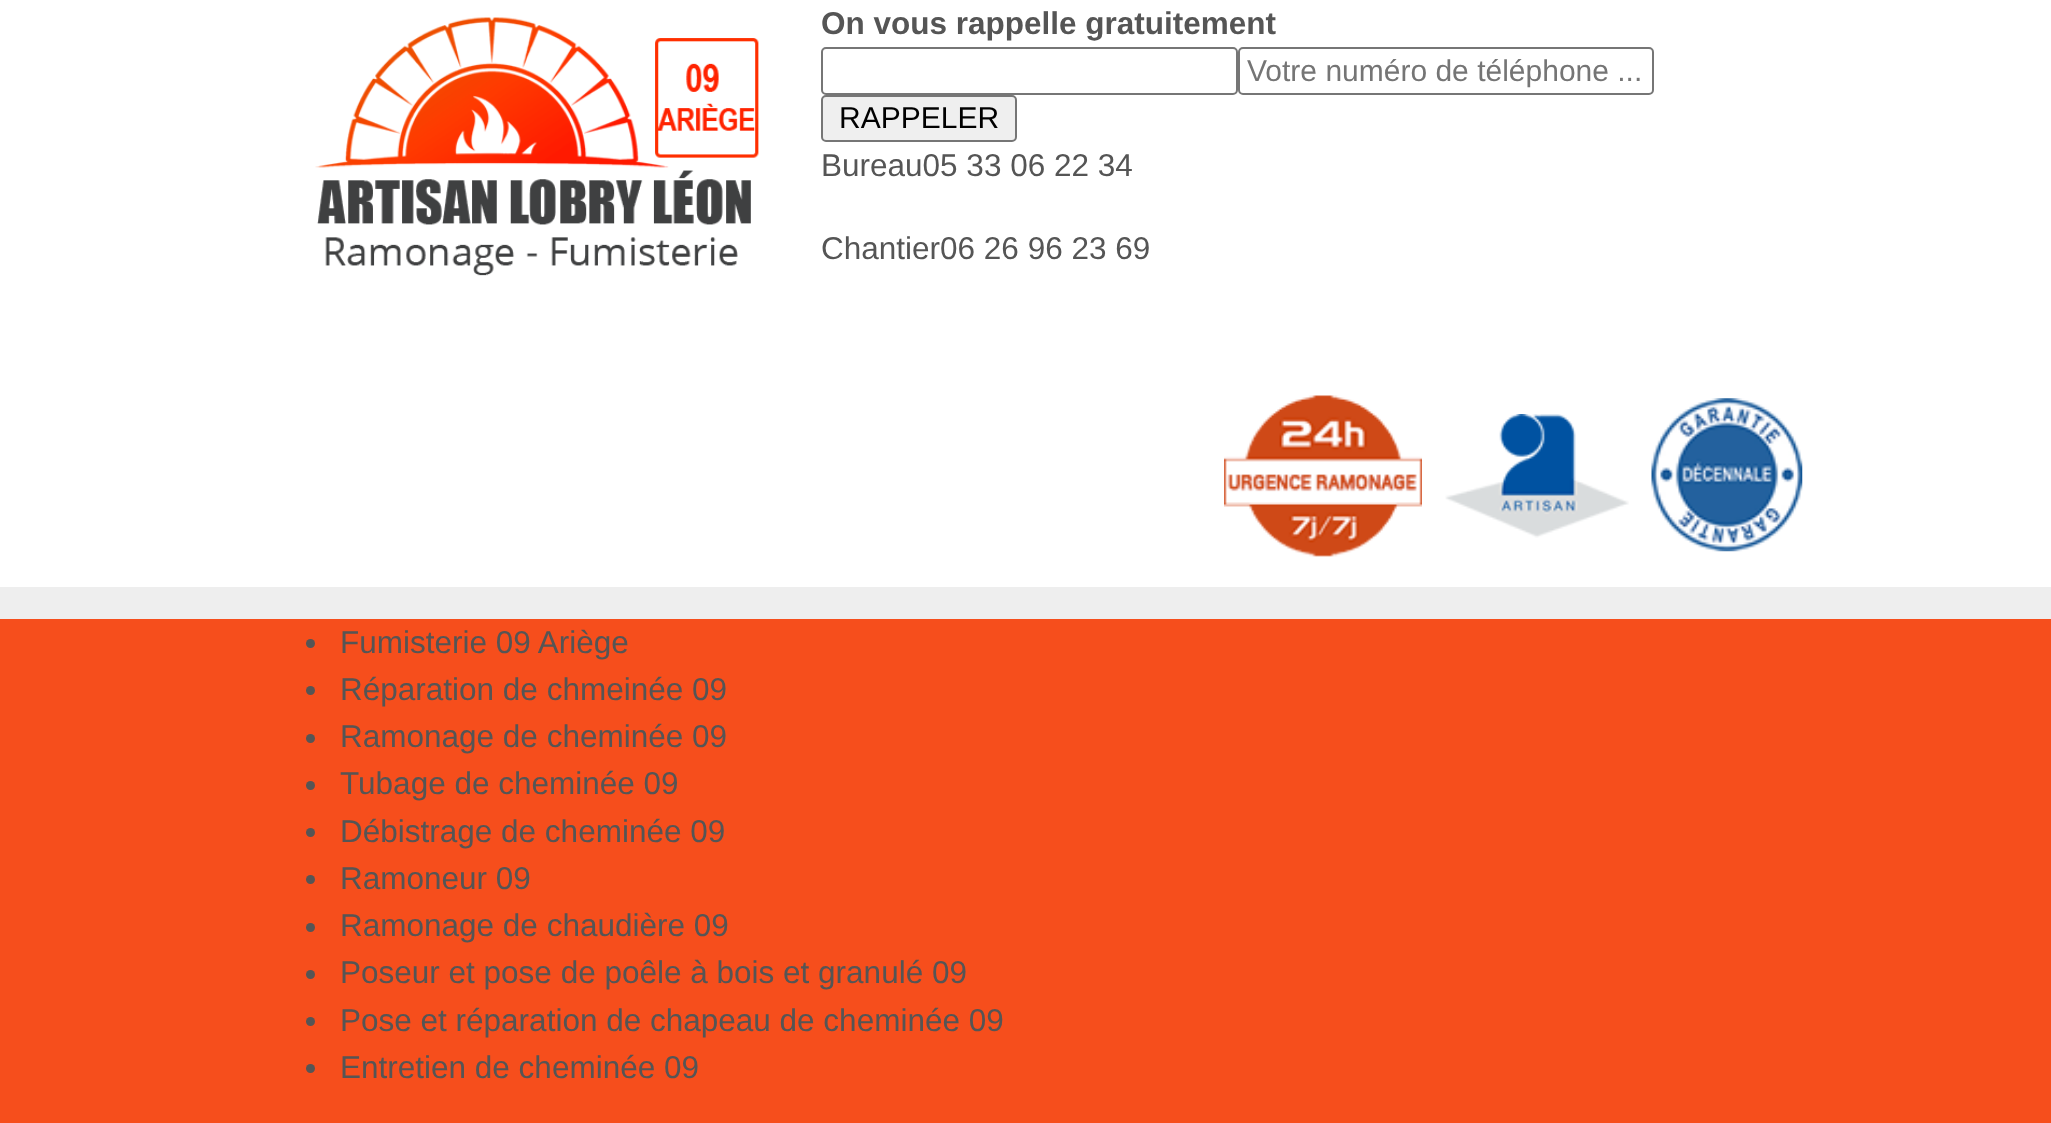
<svg xmlns="http://www.w3.org/2000/svg" width="2051" height="1123" viewBox="0 0 2051 1123">
  <rect width="100%" height="100%" fill="#eee"/>
  <path d="M0 0h2051v587H0z" fill="#fff"/>
  <image x="315" y="17" width="444" height="259" href="img/1.png"/>
  <rect x="822" y="48" width="415" height="46" rx="4" fill="none" stroke="#767676" stroke-width="2"/>
  <rect x="1239" y="48" width="414" height="46" rx="4" fill="none" stroke="#767676" stroke-width="2"/>
  <rect x="822" y="96" width="194" height="45" rx="4" fill="#efefef" stroke="#767676" stroke-width="2"/>
  <image x="1224" y="395" width="198" height="162" href="img/2.png"/>
  <image x="1445" y="414" width="184" height="124" href="img/3.png"/>
  <image x="1651" y="398" width="152" height="154" href="img/4.png"/>
  <path d="M0 619h2051v504H0z" fill="#f64e1c"/>
  <circle cx="310.5" cy="643.5" r="4.5" fill="#555"/>
  <circle cx="310.5" cy="690.5" r="4.5" fill="#555"/>
  <circle cx="310.5" cy="738.5" r="4.5" fill="#555"/>
  <circle cx="310.5" cy="785.5" r="4.5" fill="#555"/>
  <circle cx="310.5" cy="832.5" r="4.5" fill="#555"/>
  <circle cx="310.5" cy="879.5" r="4.5" fill="#555"/>
  <circle cx="310.5" cy="927.5" r="4.5" fill="#555"/>
  <circle cx="310.5" cy="974.5" r="4.5" fill="#555"/>
  <circle cx="310.5" cy="1021.5" r="4.5" fill="#555"/>
  <circle cx="310.5" cy="1068.5" r="4.5" fill="#555"/>
  <text x="821" y="34" font-family="Liberation Sans" font-size="31.5" font-weight="bold" fill="#555">On vous rappelle gratuitement</text>
  <text x="1247" y="81" font-family="Liberation Sans" font-size="30" fill="#757575">Votre numéro de téléphone ...</text>
  <text x="839" y="128" font-family="Liberation Sans" font-size="30" fill="#000">RAPPELER</text>
  <g font-family="Liberation Sans" font-size="31.5" fill="#555">
    <text x="821" y="176">Bureau05 33 06 22 34</text>
    <text x="821" y="259">Chantier06 26 96 23 69</text>
    <text x="340" y="653">Fumisterie 09 Ariège</text>
    <text x="340" y="700">Réparation de chmeinée 09</text>
    <text x="340" y="747">Ramonage de cheminée 09</text>
    <text x="340" y="794">Tubage de cheminée 09</text>
    <text x="340" y="842">Débistrage de cheminée 09</text>
    <text x="340" y="889">Ramoneur 09</text>
    <text x="340" y="936">Ramonage de chaudière 09</text>
    <text x="340" y="983">Poseur et pose de poêle à bois et granulé 09</text>
    <text x="340" y="1031">Pose et réparation de chapeau de cheminée 09</text>
    <text x="340" y="1078">Entretien de cheminée 09</text>
  </g>
</svg>
